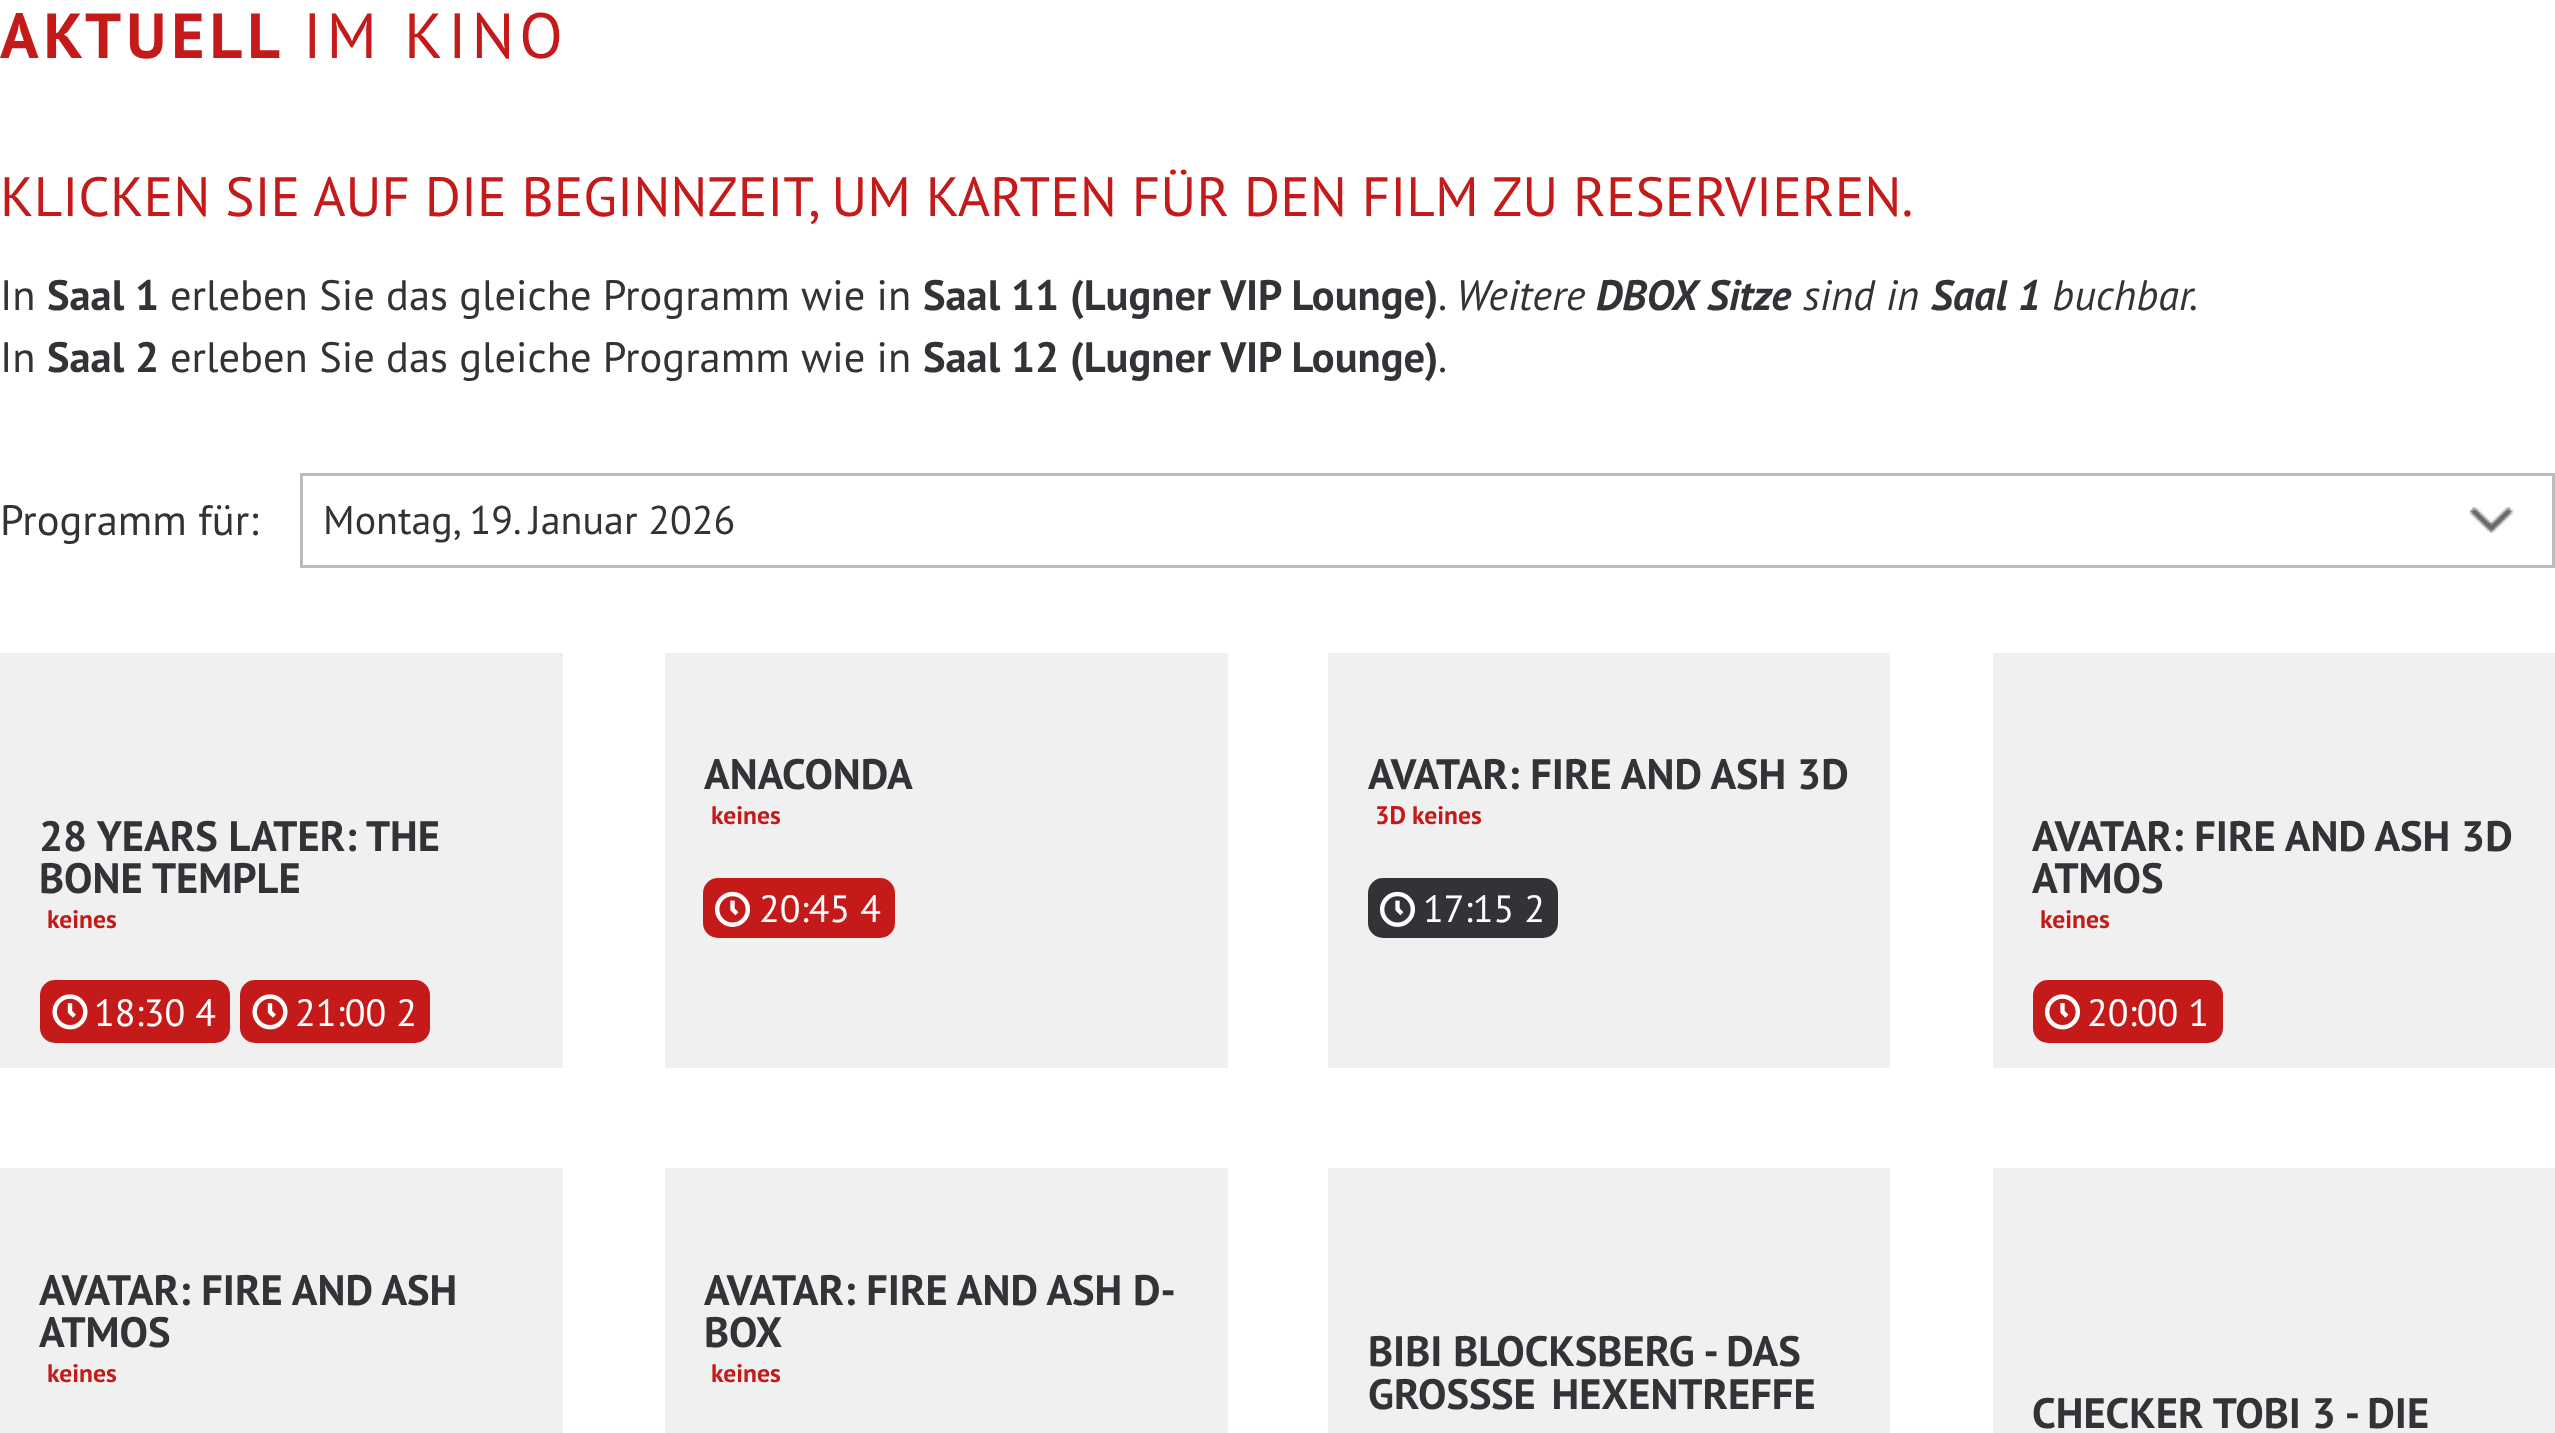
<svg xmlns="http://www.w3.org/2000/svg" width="2555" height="1433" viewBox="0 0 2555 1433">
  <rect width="100%" height="100%" fill="#fff"/>
  <image x="2470" y="507" width="44" height="26" href="img/1.png"/>
  <path d="M301.5 474.5h2252v92H301.5z" fill="none" stroke="#bbb" stroke-width="3"/>
  <path d="M0 653h563v415H0z" fill="#f0f0f0"/>
  <rect x="40" y="980" width="190" height="63" rx="15" fill="#c51a1a"/>
  <image x="52" y="994" width="36" height="36" href="img/2.png"/>
  <rect x="240" y="980" width="190" height="63" rx="15" fill="#c51a1a"/>
  <image x="252" y="994" width="36" height="36" href="img/2.png"/>
  <path d="M665 653h563v415H665z" fill="#f0f0f0"/>
  <rect x="703" y="878" width="192" height="60" rx="15" fill="#c51a1a"/>
  <image x="715" y="891" width="35" height="36" href="img/3.png"/>
  <path d="M1328 653h562v415H1328z" fill="#f0f0f0"/>
  <rect x="1368" y="878" width="190" height="60" rx="15" fill="#323237"/>
  <image x="1380" y="891" width="35" height="36" href="img/4.png"/>
  <path d="M1993 653h562v415H1993z" fill="#f0f0f0"/>
  <rect x="2033" y="980" width="190" height="63" rx="15" fill="#c51a1a"/>
  <image x="2045" y="994" width="35" height="36" href="img/5.png"/>
  <path d="M0 1168h563v265H0z" fill="#f0f0f0"/>
  <path d="M665 1168h563v265H665z" fill="#f0f0f0"/>
  <path d="M1328 1168h562v265H1328z" fill="#f0f0f0"/>
  <path d="M1993 1168h562v265H1993z" fill="#f0f0f0"/>
  <text x="0" y="58" font-family="PT Sans" font-size="63.75" font-weight="bold" letter-spacing="5" fill="#c51a1a">AKTUELL</text>
  <text x="303" y="58" font-family="PT Sans" font-size="63.75" letter-spacing="5" fill="#c51a1a">IM KINO</text>
  <text x="0" y="216" font-family="PT Sans" font-size="55.25" fill="#c51a1a">KLICKEN SIE AUF DIE BEGINNZEIT, UM KARTEN FÜR DEN FILM ZU RESERVIEREN.</text>
  <text x="0" y="310" font-family="PT Sans" font-size="42.5" fill="#323237">In</text>
  <text x="47" y="310" font-family="PT Sans" font-size="42.5" font-weight="bold" fill="#323237">Saal 1</text>
  <text x="170" y="310" font-family="PT Sans" font-size="42.5" fill="#323237">erleben Sie das gleiche Programm wie in</text>
  <text x="923" y="310" font-family="PT Sans" font-size="42.5" font-weight="bold" fill="#323237">Saal 11 (Lugner VIP Lounge)</text>
  <text x="1438" y="310" font-family="PT Sans" font-size="42.5" fill="#323237">.</text>
  <text x="1456" y="310" font-family="PT Sans" font-size="42.5" font-style="italic" fill="#323237">Weitere</text>
  <text x="1596" y="310" font-family="PT Sans" font-size="42.5" font-weight="bold" font-style="italic" fill="#323237">DBOX Sitze</text>
  <text x="1803" y="310" font-family="PT Sans" font-size="42.5" font-style="italic" fill="#323237">sind in</text>
  <text x="1931" y="310" font-family="PT Sans" font-size="42.5" font-weight="bold" font-style="italic" fill="#323237">Saal 1</text>
  <text x="2052" y="310" font-family="PT Sans" font-size="42.5" font-style="italic" fill="#323237">buchbar.</text>
  <text x="0" y="372" font-family="PT Sans" font-size="42.5" fill="#323237">In</text>
  <text x="47" y="372" font-family="PT Sans" font-size="42.5" font-weight="bold" fill="#323237">Saal 2</text>
  <text x="170" y="372" font-family="PT Sans" font-size="42.5" fill="#323237">erleben Sie das gleiche Programm wie in</text>
  <text x="923" y="372" font-family="PT Sans" font-size="42.5" font-weight="bold" fill="#323237">Saal 12 (Lugner VIP Lounge)</text>
  <g font-family="PT Sans" font-size="42.5" fill="#323237">
    <text x="1438" y="372">.</text>
    <text x="0" y="535">Programm für:</text>
  </g>
  <text x="323" y="534" font-family="PT Sans" font-size="40" fill="#323237">Montag, 19. Januar 2026</text>
  <g font-family="PT Sans" font-size="42.5" font-weight="bold" fill="#323237">
    <text x="39" y="851">28 YEARS LATER: THE</text>
    <text x="39" y="893">BONE TEMPLE</text>
  </g>
  <text x="47" y="928" font-family="PT Sans" font-size="25.5" font-weight="bold" fill="#c51a1a">keines</text>
  <g font-family="PT Sans" font-size="38" fill="#fff">
    <text x="94" y="1026">18:30 4</text>
    <text x="295" y="1026">21:00 2</text>
  </g>
  <text x="704" y="789" font-family="PT Sans" font-size="42.5" font-weight="bold" fill="#323237">ANACONDA</text>
  <text x="711" y="824" font-family="PT Sans" font-size="25.5" font-weight="bold" fill="#c51a1a">keines</text>
  <text x="759" y="922" font-family="PT Sans" font-size="38" fill="#fff">20:45 4</text>
  <text x="1368" y="789" font-family="PT Sans" font-size="42.5" font-weight="bold" fill="#323237">AVATAR: FIRE AND ASH 3D</text>
  <text x="1375" y="824" font-family="PT Sans" font-size="25.5" font-weight="bold" fill="#c51a1a">3D keines</text>
  <text x="1423" y="922" font-family="PT Sans" font-size="38" fill="#fff">17:15 2</text>
  <g font-family="PT Sans" font-size="42.5" font-weight="bold" fill="#323237">
    <text x="2032" y="851">AVATAR: FIRE AND ASH 3D</text>
    <text x="2032" y="893">ATMOS</text>
  </g>
  <text x="2040" y="928" font-family="PT Sans" font-size="25.5" font-weight="bold" fill="#c51a1a">keines</text>
  <text x="2087" y="1026" font-family="PT Sans" font-size="38" fill="#fff">20:00 1</text>
  <g font-family="PT Sans" font-size="42.5" font-weight="bold" fill="#323237">
    <text x="39" y="1305">AVATAR: FIRE AND ASH</text>
    <text x="39" y="1347">ATMOS</text>
  </g>
  <text x="47" y="1382" font-family="PT Sans" font-size="25.5" font-weight="bold" fill="#c51a1a">keines</text>
  <g font-family="PT Sans" font-size="42.5" font-weight="bold" fill="#323237">
    <text x="704" y="1305">AVATAR: FIRE AND ASH D-</text>
    <text x="704" y="1347">BOX</text>
  </g>
  <text x="711" y="1382" font-family="PT Sans" font-size="25.5" font-weight="bold" fill="#c51a1a">keines</text>
  <g font-family="PT Sans" font-size="42.5" font-weight="bold" fill="#323237">
    <text x="1368" y="1366">BIBI BLOCKSBERG - DAS</text>
    <text x="1368" y="1409">GROSS</text>
    <text x="1491" y="1409" word-spacing="5">SE HEXENTREFFE</text>
    <text x="2032" y="1428">CHECKER TOBI 3 - DIE</text>
  </g>
</svg>
